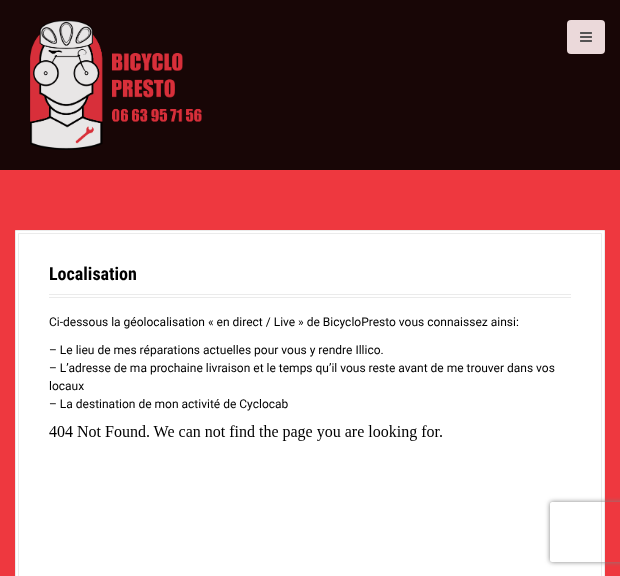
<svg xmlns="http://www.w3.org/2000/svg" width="620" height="576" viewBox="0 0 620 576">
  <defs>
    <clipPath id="clip1"><path d="M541 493H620V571H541ZM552 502H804C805 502 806 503 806 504V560C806 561 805 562 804 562H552C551 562 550 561 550 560V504C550 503 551 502 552 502Z" clip-rule="evenodd"/></clipPath>
  </defs>
  <rect width="100%" height="100%" fill="#ee383f"/>
  <path d="M0 0h620v170H0z" fill="#180606"/>
  <image x="30" y="20" width="172" height="130" href="img/1.png"/>
  <rect x="567" y="20" width="38" height="34" rx="4" fill="#ebd9da"/>
  <image x="580" y="32" width="12" height="10" href="img/2.png"/>
  <path d="M15.5 230.5h589v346H15.5z" fill="#fff" stroke="#ebebeb"/>
  <path d="M18.5 233.5h583v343H18.5z" fill="none" stroke="#ebebeb"/>
  <path d="M49 294h522v1H49z" fill="#ebebeb"/>
  <path d="M49 297h522v1H49z" fill="#ebebeb"/>
  <image x="49" y="425" width="393" height="16" href="img/3.png"/>
  <g clip-path="url(#clip1)">
    <rect x="550" y="502" width="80" height="60" rx="2" fill="#808080" filter="blur(2.5px)"/>
  </g>
  <text x="49" y="280" font-family="Roboto Condensed" font-size="18" font-weight="bold" fill="#000">Localisation</text>
  <g font-family="Roboto" font-size="12" fill="#000">
    <text x="49" y="326">Ci-dessous la géolocalisation « en direct / Live » de BicycloPresto vous connaissez ainsi:</text>
    <text x="49" y="354">– Le lieu de mes réparations actuelles pour vous y rendre Illico.</text>
    <text x="49" y="372">– L’adresse de ma prochaine livraison et le temps qu’il vous reste avant de me trouver dans vos</text>
    <text x="49" y="390">locaux</text>
    <text x="49" y="408">– La destination de mon activité de Cyclocab</text>
  </g>
</svg>
